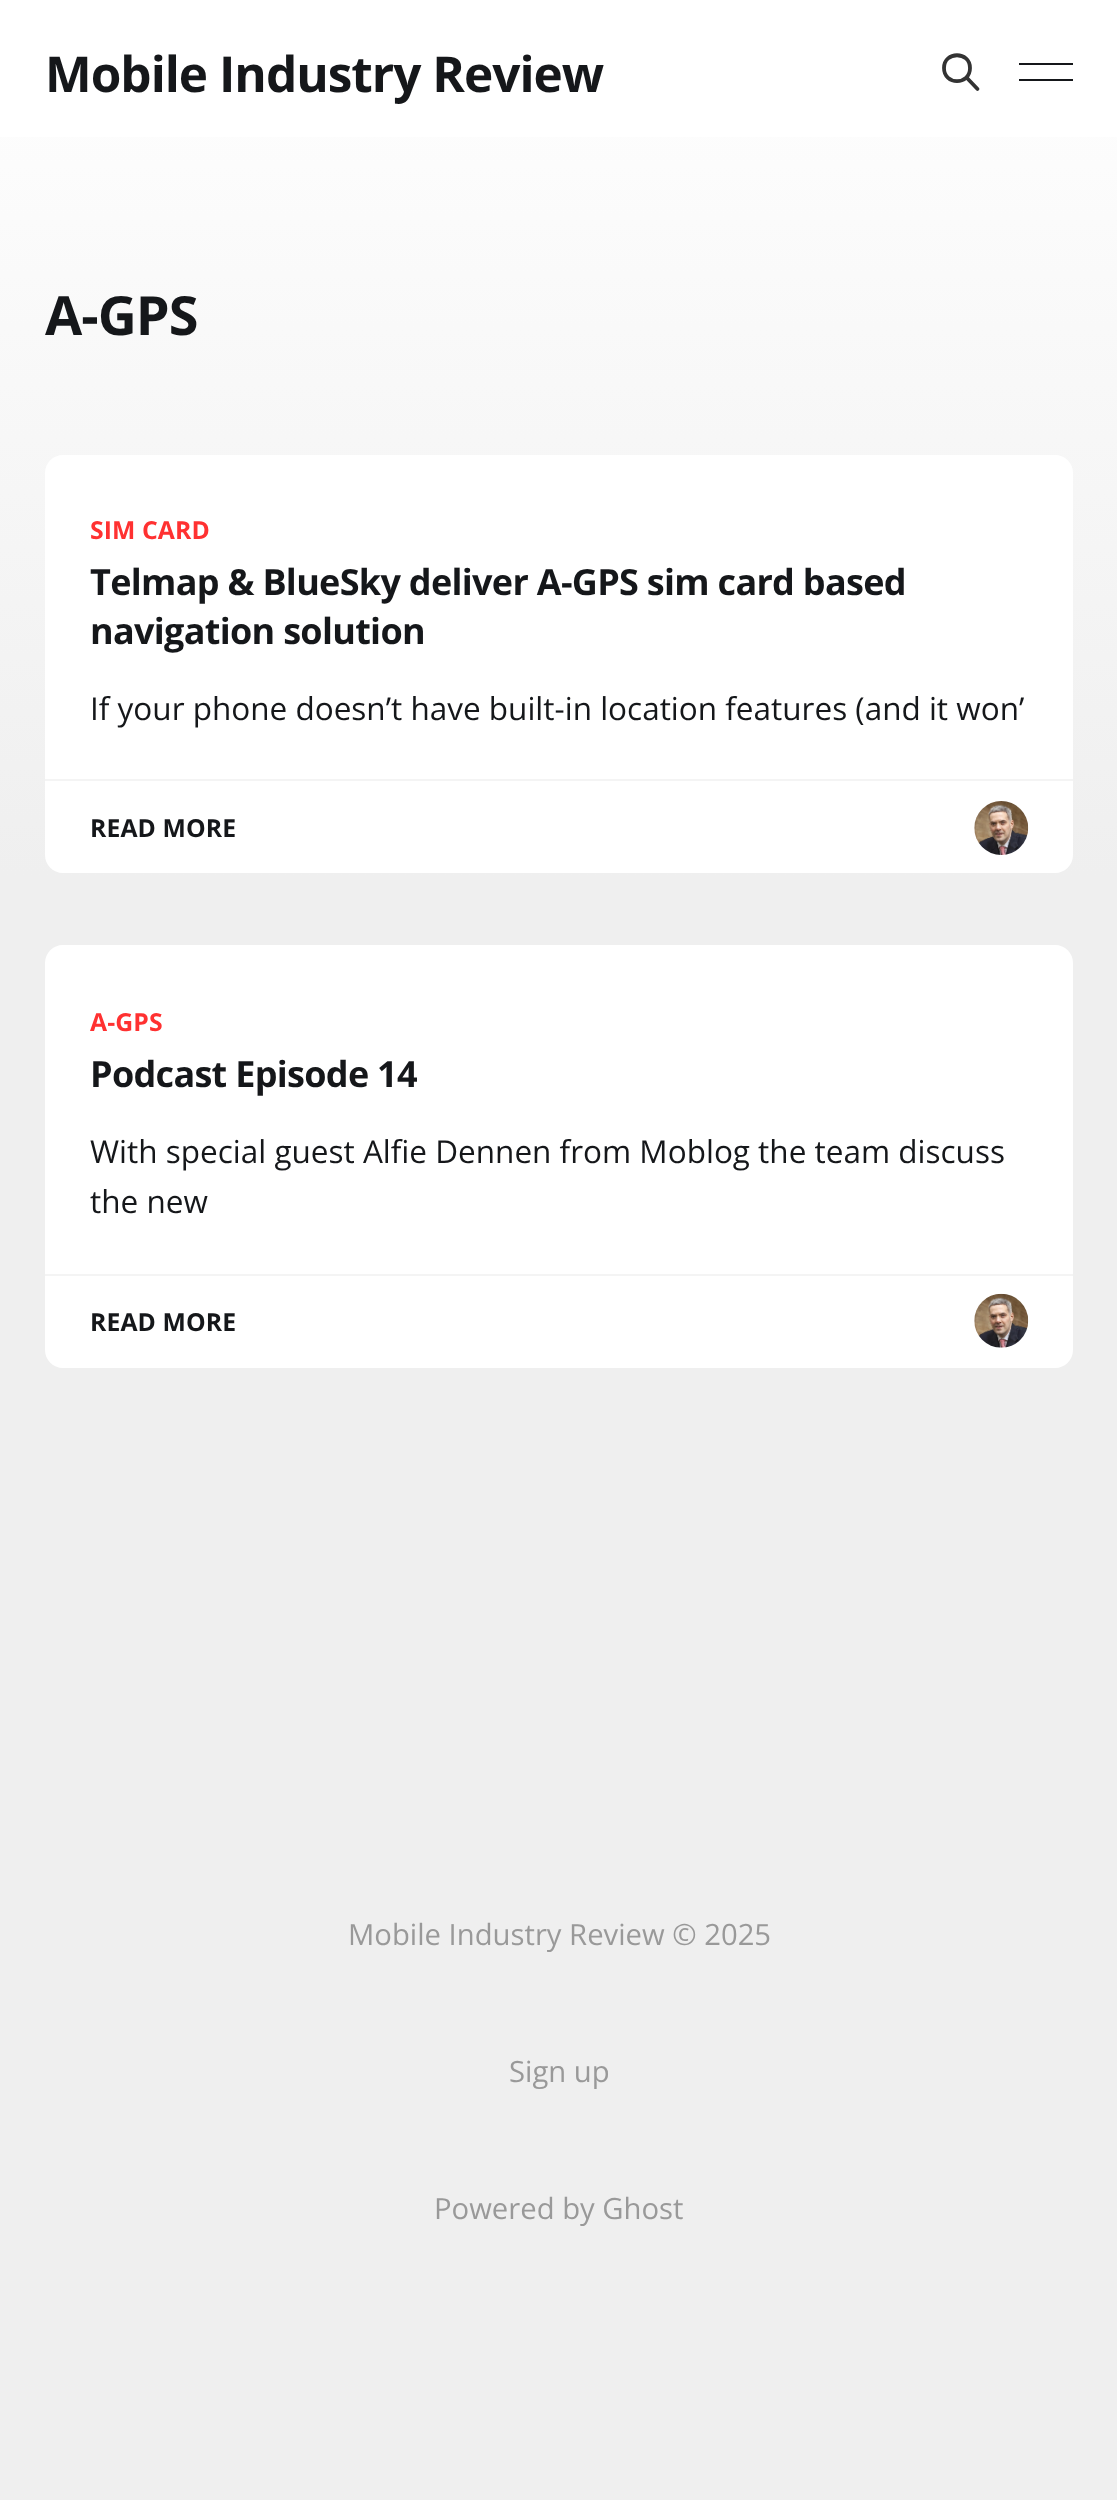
<svg xmlns="http://www.w3.org/2000/svg" width="1117" height="2500" viewBox="0 0 1117 2500">
  <defs>
    <linearGradient id="g1" gradientUnits="userSpaceOnUse" x1="559" y1="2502" x2="559" y2="0"><stop offset="0.65" stop-color="#efefef"/><stop offset="1" stop-color="#fff"/></linearGradient>
  </defs>
  <rect width="100%" height="100%" fill="#fff"/>
  <path d="M0 137h1117v2363H0z" fill="url(#g1)"/>
  <path d="M977.5 89L966.5 77.5M970 68C970 85.5 944 85.5 944 68C944 51 970 51 970 68Z" fill="none" stroke="#333" stroke-width="3.8" stroke-linecap="round" stroke-linejoin="round"/>
  <path d="M1019 63h54v2H1019z" fill="#15171a"/>
  <path d="M1019 79h54v2H1019z" fill="#15171a"/>
  <path d="M63 455H1055C1065 455 1073 463 1073 473V779H45V473C45 463 53 455 63 455Z" fill="#fff"/>
  <path d="M45 779H1073V855C1073 865 1065 873 1055 873H63C53 873 45 865 45 855Z" fill="#fff"/>
  <path d="M45 779h1028v2H45z" fill="#f4f4f4"/>
  <image x="974" y="801" width="55" height="54" href="img/1.png"/>
  <path d="M63 945H1055C1065 945 1073 953 1073 963V1274H45V963C45 953 53 945 63 945Z" fill="#fff"/>
  <path d="M45 1274H1073V1350C1073 1360 1065 1368 1055 1368H63C53 1368 45 1360 45 1350Z" fill="#fff"/>
  <path d="M45 1274h1028v2H45z" fill="#f4f4f4"/>
  <image x="974" y="1293" width="55" height="55" href="img/2.png"/>
  <text x="45" y="92" font-family="Open Sans" font-size="49.5" font-weight="bold" letter-spacing="-1" fill="#15171a">Mobile Industry Review</text>
  <text x="45" y="335" font-family="Open Sans" font-size="54" font-weight="bold" letter-spacing="-1" fill="#15171a">A-GPS</text>
  <text x="90" y="539" font-family="Open Sans" font-size="24.75" font-weight="bold" letter-spacing="0.1" fill="#ff3131">SIM CARD</text>
  <g font-family="Open Sans" font-size="36" font-weight="bold" letter-spacing="-0.7" fill="#15171a">
    <text x="90" y="595">Telmap &amp; BlueSky deliver A-GPS sim card based</text>
    <text x="90" y="644">navigation solution</text>
  </g>
  <text x="90" y="720" font-family="Open Sans" font-size="31.5" fill="#15171a">If your phone doesn’t have built-in location features (and it won’</text>
  <text x="90" y="837" font-family="Open Sans" font-size="24.75" font-weight="bold" letter-spacing="0.1" fill="#15171a">READ MORE</text>
  <text x="90" y="1031" font-family="Open Sans" font-size="24.75" font-weight="bold" letter-spacing="0.1" fill="#ff3131">A-GPS</text>
  <text x="90" y="1087" font-family="Open Sans" font-size="36" font-weight="bold" letter-spacing="-0.7" fill="#15171a">Podcast Episode 14</text>
  <g font-family="Open Sans" font-size="31.5" fill="#15171a">
    <text x="90" y="1163">With special guest Alfie Dennen from Moblog the team discuss</text>
    <text x="90" y="1213">the new</text>
  </g>
  <text x="90" y="1331" font-family="Open Sans" font-size="24.75" font-weight="bold" letter-spacing="0.1" fill="#15171a">READ MORE</text>
  <g font-family="Open Sans" font-size="29.25" fill="#999">
    <text x="348" y="1945">Mobile Industry Review © 2025</text>
    <text x="509" y="2082">Sign up</text>
    <text x="434" y="2219">Powered by Ghost</text>
  </g>
</svg>
